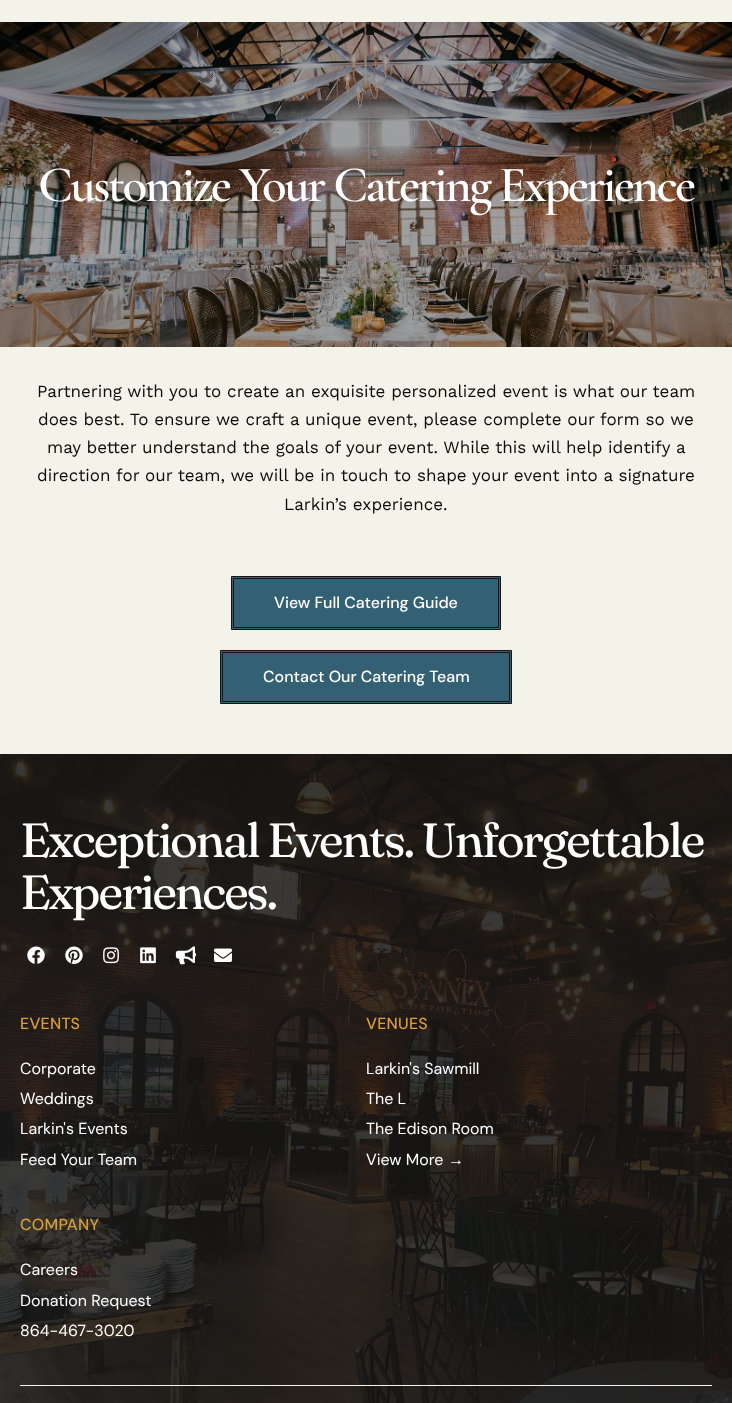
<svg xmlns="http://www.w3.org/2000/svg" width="732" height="1403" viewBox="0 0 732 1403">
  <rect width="100%" height="100%" fill="#f4f3ea"/>
  <image x="0" y="22" width="732" height="325" href="img/1.png"/>
  <path d="M231.5 576.5h269v53H231.5z" fill="#346073" stroke="#161514"/>
  <path d="M233.5 578.5h265v49H233.5z" fill="none" stroke="#161514"/>
  <path d="M220.5 650.5h291v53H220.5z" fill="#346073" stroke="#161514"/>
  <path d="M222.5 652.5h287v49H222.5z" fill="none" stroke="#161514"/>
  <image x="0" y="754" width="732" height="649" href="img/2.png"/>
  <image x="27" y="946" width="18" height="18" href="img/3.png"/>
  <image x="65" y="946" width="18" height="18" href="img/4.png"/>
  <image x="103" y="947" width="16" height="17" href="img/5.png"/>
  <image x="140" y="947" width="16" height="17" href="img/6.png"/>
  <image x="175" y="946" width="22" height="19" href="img/7.png"/>
  <image x="214" y="948" width="18" height="14" href="img/8.png"/>
  <path d="M20 1385h692v1H20z" fill="#f4f3ea"/>
  <text x="38" y="201" font-family="Cormorant Garamond" font-size="51" font-weight="600" letter-spacing="-2.55" fill="#fff">Customize Your Catering Experience</text>
  <g font-family="Work Sans" font-size="17" fill="#0b0b0b">
    <text x="37" y="397">Partnering with you to create an exquisite personalized event is what our team</text>
    <text x="38" y="425">does best. To ensure we craft a unique event, please complete our form so we</text>
    <text x="47" y="453">may better understand the goals of your event. While this will help identify a</text>
    <text x="37" y="481">direction for our team, we will be in touch to shape your event into a signature</text>
    <text x="284" y="510">Larkin’s experience.</text>
  </g>
  <g font-family="DM Sans" font-size="16" font-weight="500" fill="#fff">
    <text x="274" y="608">View Full Catering Guide</text>
    <text x="263" y="682">Contact Our Catering Team</text>
  </g>
  <g font-family="Fraunces" font-size="48" letter-spacing="-2.4" fill="#fff">
    <text x="20" y="857">Exceptional Events. Unforgettable</text>
    <text x="20" y="909">Experiences.</text>
  </g>
  <text x="20" y="1029" font-family="DM Sans" font-size="16" font-weight="500" letter-spacing="0.25" fill="#d99e39">EVENTS</text>
  <g font-family="DM Sans" font-size="16" fill="#fff">
    <text x="20" y="1074">Corporate</text>
    <text x="20" y="1104">Weddings</text>
    <text x="20" y="1134">Larkin's Events</text>
    <text x="20" y="1165">Feed Your Team</text>
  </g>
  <text x="366" y="1029" font-family="DM Sans" font-size="16" font-weight="500" letter-spacing="0.25" fill="#d99e39">VENUES</text>
  <g font-family="DM Sans" font-size="16" fill="#fff">
    <text x="366" y="1074">Larkin's Sawmill</text>
    <text x="366" y="1104">The L</text>
    <text x="366" y="1134">The Edison Room</text>
    <text x="366" y="1165">View More</text>
  </g>
  <text x="448" y="1165" font-family="Liberation Sans" font-size="16" fill="#fff">→</text>
  <text x="20" y="1230" font-family="DM Sans" font-size="16" font-weight="500" letter-spacing="0.25" fill="#d99e39">COMPANY</text>
  <g font-family="DM Sans" font-size="16" fill="#fff">
    <text x="20" y="1275">Careers</text>
    <text x="20" y="1306">Donation Request</text>
    <text x="20" y="1336">864-467-3020</text>
  </g>
</svg>
